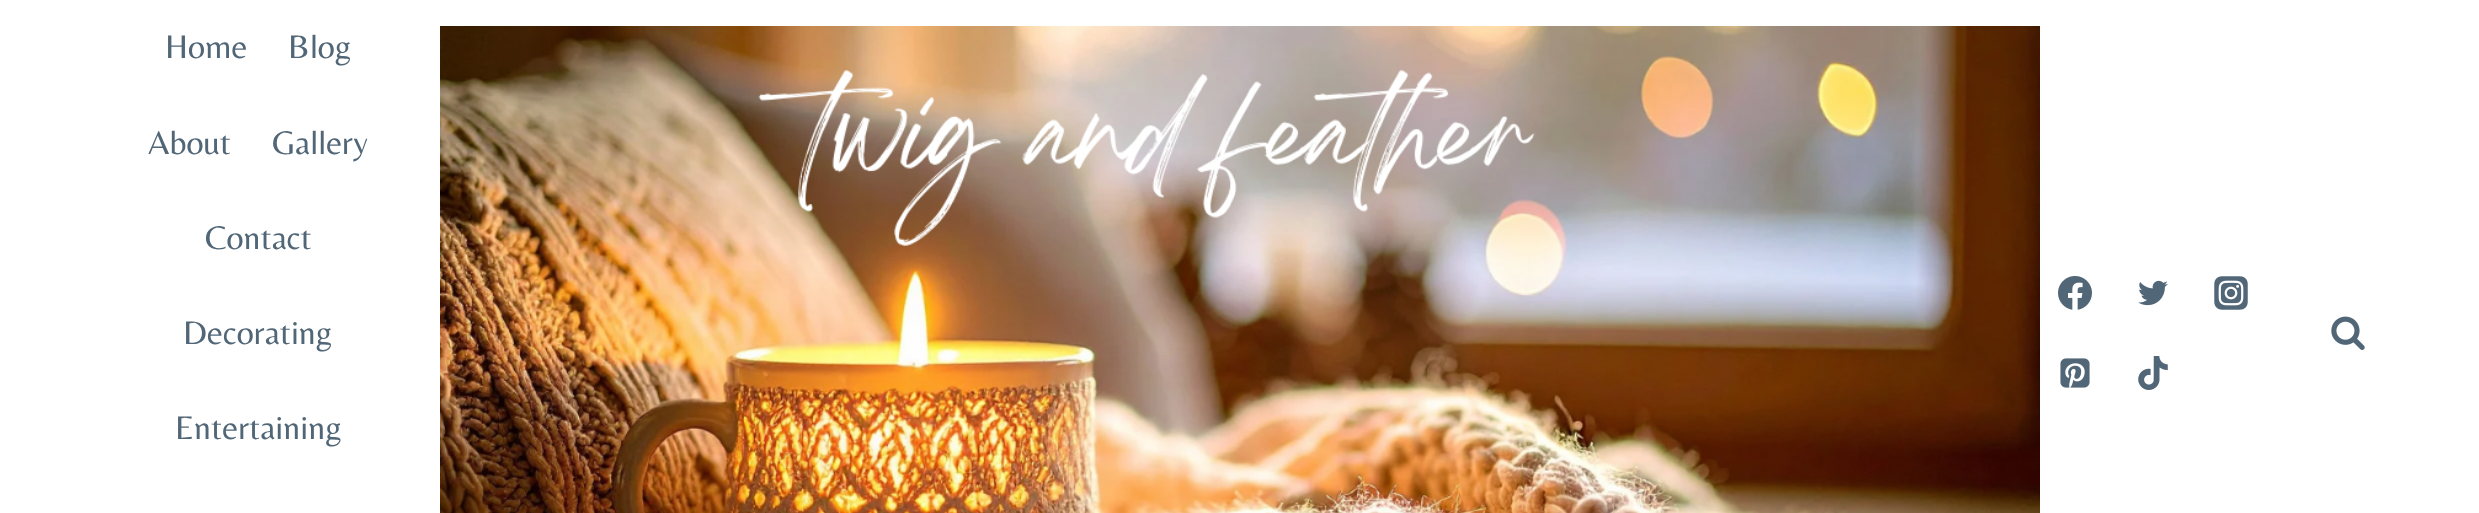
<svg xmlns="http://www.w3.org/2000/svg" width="2479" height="513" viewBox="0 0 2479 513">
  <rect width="100%" height="100%" fill="#fff"/>
  <image x="440" y="26" width="1600" height="487" href="img/1.png"/>
  <image x="2058" y="276" width="34" height="34" href="img/2.png"/>
  <image x="2138" y="280" width="30" height="26" href="img/3.png"/>
  <image x="2214" y="276" width="34" height="34" href="img/4.png"/>
  <image x="2060" y="358" width="30" height="30" href="img/5.png"/>
  <image x="2138" y="356" width="30" height="34" href="img/6.png"/>
  <image x="2331" y="316" width="34" height="34" href="img/7.png"/>
  <g font-family="Belleza" font-size="34" fill="#516677">
    <text x="165" y="58">Home</text>
    <text x="288" y="58">Blog</text>
    <text x="148" y="154">About</text>
    <text x="272" y="154">Gallery</text>
    <text x="205" y="249">Contact</text>
    <text x="183" y="344">Decorating</text>
    <text x="175" y="439">Entertaining</text>
  </g>
</svg>
